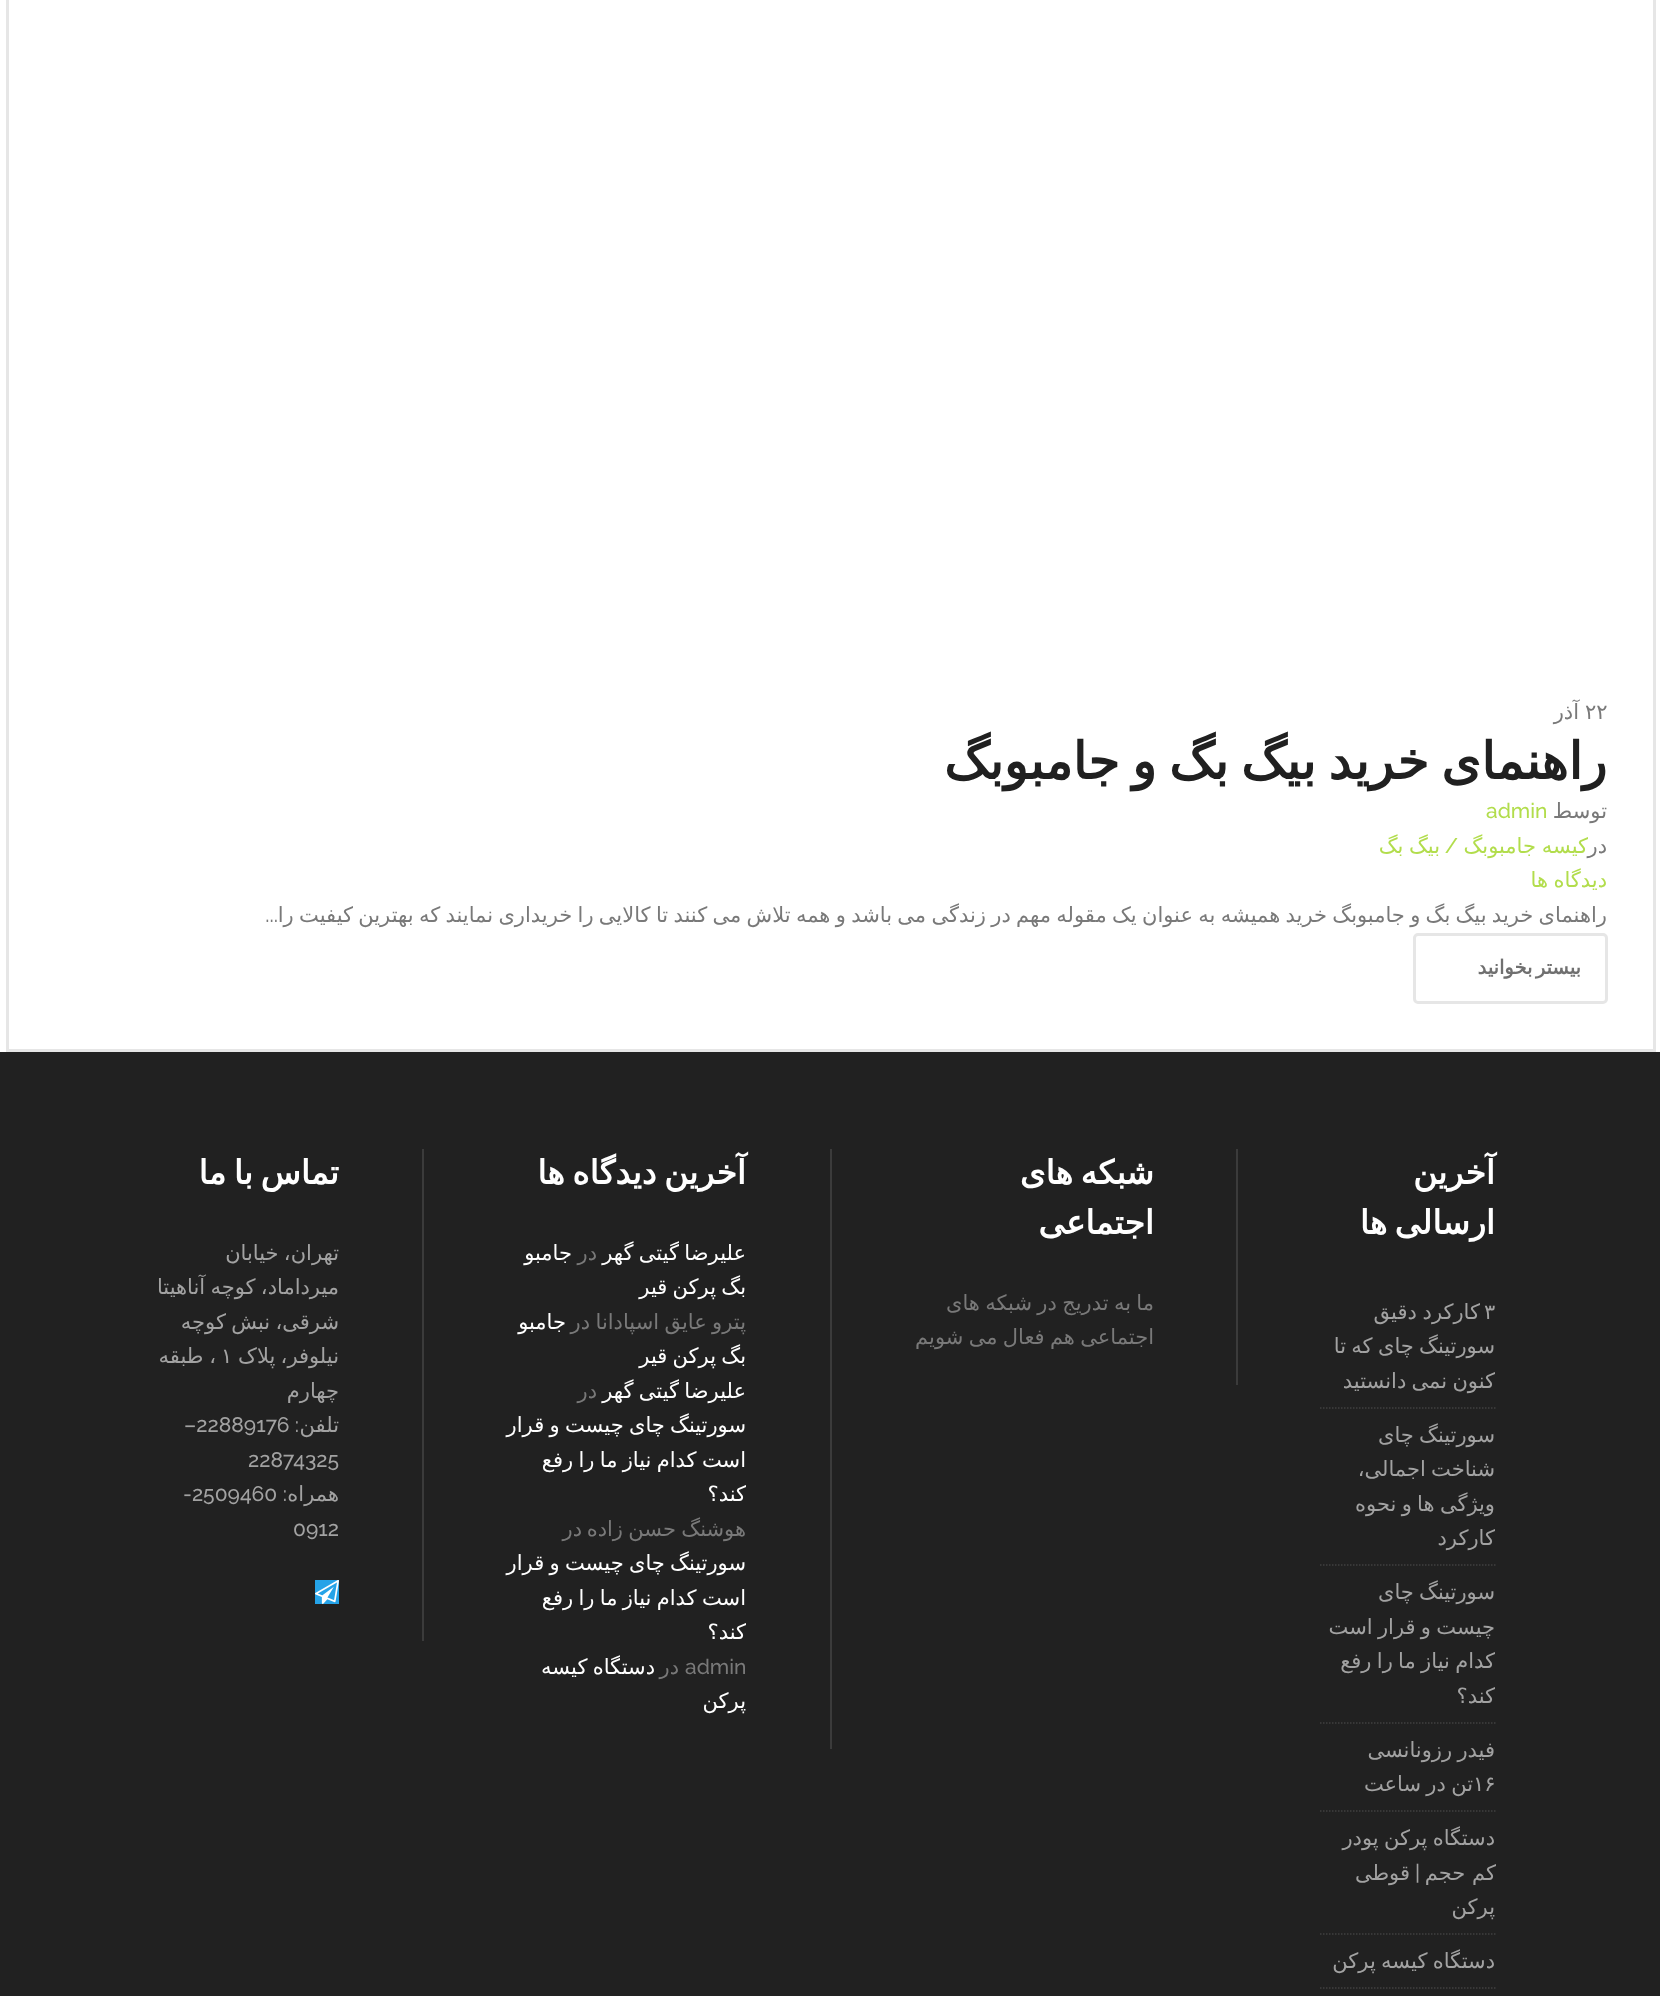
<svg xmlns="http://www.w3.org/2000/svg" width="1660" height="1996" viewBox="0 0 1660 1996">
  <rect width="100%" height="100%" fill="#fff"/>
  <path d="M7.5 -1.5h1647v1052H7.5z" fill="none" stroke="#e6e6e6" stroke-width="3"/>
  <rect x="1414.5" y="934.5" width="192" height="68" rx="3.5" fill="none" stroke="#e6e6e6" stroke-width="3"/>
  <path d="M0 1052h1660v944H0z" fill="#212121"/>
  <path d="M1320 1408H1495.5" fill="none" stroke="#404040" stroke-width="1.5" stroke-dasharray="1.5 1.5"/>
  <path d="M1320 1565H1495.5" fill="none" stroke="#404040" stroke-width="1.5" stroke-dasharray="1.5 1.5"/>
  <path d="M1320 1723H1495.5" fill="none" stroke="#404040" stroke-width="1.5" stroke-dasharray="1.5 1.5"/>
  <path d="M1320 1811H1495.5" fill="none" stroke="#404040" stroke-width="1.5" stroke-dasharray="1.5 1.5"/>
  <path d="M1320 1934H1495.5" fill="none" stroke="#404040" stroke-width="1.5" stroke-dasharray="1.5 1.5"/>
  <path d="M1320 1988H1495.5" fill="none" stroke="#404040" stroke-width="1.5" stroke-dasharray="1.5 1.5"/>
  <path d="M1236 1149h2v236H1236z" fill="#3b3b3b"/>
  <path d="M830 1149h2v600H830z" fill="#3b3b3b"/>
  <path d="M422 1149h2v492H422z" fill="#3b3b3b"/>
  <path d="M315 1580h24v24H315z" fill="#25a3e8"/>
  <image x="315" y="1580" width="24" height="24" href="img/1.png"/>
  <text x="1585" y="719" font-family="DejaVu Sans" font-size="21" fill="#797979">۲۲</text>
  <text x="1579" y="719" font-family="DejaVu Sans" font-size="21" direction="rtl" fill="#797979">آذر</text>
  <text x="1607" y="779" word-spacing="-4" font-family="DejaVu Sans" font-size="51" font-weight="bold" direction="rtl" fill="#202020">راهنمای خرید بیگ بگ و جامبوبگ</text>
  <text x="1607" y="818" font-family="DejaVu Sans" font-size="21" direction="rtl" fill="#797979">توسط</text>
  <text x="1486" y="818" font-family="Raleway" font-size="21" font-weight="500" fill="#b2dd4c">admin</text>
  <text x="1607" y="853" font-family="DejaVu Sans" font-size="21" direction="rtl" fill="#797979">در</text>
  <text x="1588" y="853" word-spacing="-1" font-family="DejaVu Sans" font-size="21" direction="rtl" fill="#b2dd4c">کیسه جامبوبگ</text>
  <text x="1458" y="853" font-family="Raleway" font-size="21" font-weight="500" direction="rtl" fill="#b2dd4c">/</text>
  <g font-family="DejaVu Sans" font-size="21" direction="rtl" fill="#b2dd4c">
    <text x="1440" y="853" word-spacing="-1">بیگ بگ</text>
    <text x="1607" y="887" word-spacing="-1.35">دیدگاه ها</text>
  </g>
  <text x="1607" y="922" word-spacing="-1.35" font-family="DejaVu Sans" font-size="21" direction="rtl" fill="#797979">راهنمای خرید بیگ بگ و جامبوبگ خرید همیشه به عنوان یک مقوله مهم در زندگی می باشد و همه تلاش می کنند تا کالایی را خریداری نمایند که بهترین کیفیت را</text>
  <text x="278" y="922" font-family="Raleway" font-size="21" font-weight="500" direction="rtl" fill="#797979">...</text>
  <text x="1581" y="974" word-spacing="-3" font-family="DejaVu Sans" font-size="19.5" font-weight="bold" letter-spacing="1.5" direction="rtl" fill="#707070">بیستر بخوانید</text>
  <g font-family="DejaVu Sans" font-size="33" font-weight="bold" direction="rtl" fill="#fff">
    <text x="1495" y="1184">آخرین</text>
    <text x="1495" y="1234" word-spacing="-3">ارسالی ها</text>
  </g>
  <text x="1484" y="1319" font-family="DejaVu Sans" font-size="21" fill="#a2a2a2">۳</text>
  <g font-family="DejaVu Sans" font-size="21" direction="rtl" fill="#a2a2a2">
    <text x="1480" y="1319" word-spacing="-1">کارکرد دقیق</text>
    <text x="1495" y="1353" word-spacing="-1.35">سورتینگ چای که تا</text>
    <text x="1495" y="1388" word-spacing="-1.35">کنون نمی دانستید</text>
    <text x="1495" y="1442" word-spacing="-1.35">سورتینگ چای</text>
    <text x="1495" y="1476" word-spacing="-1.35">شناخت اجمالی،</text>
    <text x="1495" y="1511" word-spacing="-1.35">ویژگی ها و نحوه</text>
    <text x="1495" y="1545">کارکرد</text>
    <text x="1495" y="1599" word-spacing="-1.35">سورتینگ چای</text>
    <text x="1495" y="1634" word-spacing="-1.35">چیست و قرار است</text>
    <text x="1495" y="1668" word-spacing="-1.35">کدام نیاز ما را رفع</text>
    <text x="1495" y="1703">کند؟</text>
    <text x="1495" y="1757" word-spacing="-1.35">فیدر رزونانسی</text>
  </g>
  <text x="1473" y="1791" font-family="DejaVu Sans" font-size="21" fill="#a2a2a2">۱۶</text>
  <g font-family="DejaVu Sans" font-size="21" direction="rtl" fill="#a2a2a2">
    <text x="1473" y="1791" word-spacing="-1.35">تن در ساعت</text>
    <text x="1495" y="1845" word-spacing="-1.35">دستگاه پرکن پودر</text>
    <text x="1496" y="1880">کم حجم</text>
  </g>
  <text x="1420" y="1880" font-family="Raleway" font-size="21" font-weight="500" direction="rtl" fill="#a2a2a2">|</text>
  <g font-family="DejaVu Sans" font-size="21" direction="rtl" fill="#a2a2a2">
    <text x="1410" y="1880">قوطی</text>
    <text x="1495" y="1914">پرکن</text>
    <text x="1495" y="1968" word-spacing="-1.35">دستگاه کیسه پرکن</text>
  </g>
  <g font-family="DejaVu Sans" font-size="33" font-weight="bold" direction="rtl" fill="#fff">
    <text x="1154" y="1184" word-spacing="-3">شبکه های</text>
    <text x="1154" y="1234">اجتماعی</text>
  </g>
  <g font-family="DejaVu Sans" font-size="21" direction="rtl" fill="#797979">
    <text x="1154" y="1310" word-spacing="-1.35">ما به تدریج در شبکه های</text>
    <text x="1154" y="1344" word-spacing="-1.35">اجتماعی هم فعال می شویم</text>
  </g>
  <text x="746" y="1184" word-spacing="-3" font-family="DejaVu Sans" font-size="33" font-weight="bold" direction="rtl" fill="#fff">آخرین دیدگاه ها</text>
  <text x="746" y="1260" word-spacing="-1.35" font-family="DejaVu Sans" font-size="21" direction="rtl" fill="#fff">علیرضا گیتی گهر</text>
  <text x="597" y="1260" font-family="DejaVu Sans" font-size="21" direction="rtl" fill="#797979">در</text>
  <g font-family="DejaVu Sans" font-size="21" direction="rtl" fill="#fff">
    <text x="572" y="1260">جامبو</text>
    <text x="746" y="1294" word-spacing="-1.35">بگ پرکن قیر</text>
  </g>
  <g font-family="DejaVu Sans" font-size="21" direction="rtl" fill="#797979">
    <text x="746" y="1329" word-spacing="-1.35">پترو عایق اسپادانا</text>
    <text x="590" y="1329">در</text>
  </g>
  <g font-family="DejaVu Sans" font-size="21" direction="rtl" fill="#fff">
    <text x="566" y="1329">جامبو</text>
    <text x="746" y="1363" word-spacing="-1.35">بگ پرکن قیر</text>
    <text x="746" y="1398" word-spacing="-1.35">علیرضا گیتی گهر</text>
  </g>
  <text x="597" y="1398" font-family="DejaVu Sans" font-size="21" direction="rtl" fill="#797979">در</text>
  <g font-family="DejaVu Sans" font-size="21" direction="rtl" fill="#fff">
    <text x="746" y="1432" word-spacing="-1.35">سورتینگ چای چیست و قرار</text>
    <text x="746" y="1467" word-spacing="-1.35">است کدام نیاز ما را رفع</text>
    <text x="746" y="1501">کند؟</text>
  </g>
  <g font-family="DejaVu Sans" font-size="21" direction="rtl" fill="#797979">
    <text x="746" y="1536" word-spacing="-1.35">هوشنگ حسن زاده</text>
    <text x="582" y="1536">در</text>
  </g>
  <g font-family="DejaVu Sans" font-size="21" direction="rtl" fill="#fff">
    <text x="746" y="1570" word-spacing="-1.35">سورتینگ چای چیست و قرار</text>
    <text x="746" y="1605" word-spacing="-1.35">است کدام نیاز ما را رفع</text>
    <text x="746" y="1639">کند؟</text>
  </g>
  <text x="685" y="1674" font-family="Raleway" font-size="21" font-weight="500" fill="#797979">admin</text>
  <text x="679" y="1674" font-family="DejaVu Sans" font-size="21" direction="rtl" fill="#797979">در</text>
  <g font-family="DejaVu Sans" font-size="21" direction="rtl" fill="#fff">
    <text x="655" y="1674" word-spacing="-1.35">دستگاه کیسه</text>
    <text x="746" y="1708">پرکن</text>
  </g>
  <text x="339" y="1184" word-spacing="-3" font-family="DejaVu Sans" font-size="33" font-weight="bold" direction="rtl" fill="#fff">تماس با ما</text>
  <g font-family="DejaVu Sans" font-size="21" direction="rtl" fill="#a2a2a2">
    <text x="339" y="1260" word-spacing="-1.35">تهران، خیابان</text>
    <text x="339" y="1294" word-spacing="-1.35">میرداماد، کوچه آناهیتا</text>
    <text x="339" y="1329" word-spacing="-1.35">شرقی، نبش کوچه</text>
    <text x="339" y="1363" word-spacing="-1.35">نیلوفر، پلاک</text>
  </g>
  <text x="221" y="1363" font-family="DejaVu Sans" font-size="21" fill="#a2a2a2">۱</text>
  <g font-family="DejaVu Sans" font-size="21" direction="rtl" fill="#a2a2a2">
    <text x="216" y="1363" word-spacing="-1">، طبقه</text>
    <text x="339" y="1398">چهارم</text>
    <text x="339" y="1432">تلفن</text>
  </g>
  <text x="299" y="1432" font-family="Raleway" font-size="21" font-weight="500" direction="rtl" fill="#a2a2a2">:</text>
  <g font-family="Raleway" font-size="21" font-weight="500" fill="#a2a2a2">
    <text x="184" y="1432">–22889176</text>
    <text x="248" y="1467">22874325</text>
  </g>
  <text x="339" y="1501" font-family="DejaVu Sans" font-size="21" direction="rtl" fill="#a2a2a2">همراه</text>
  <text x="287" y="1501" font-family="Raleway" font-size="21" font-weight="500" direction="rtl" fill="#a2a2a2">:</text>
  <g font-family="Raleway" font-size="21" font-weight="500" fill="#a2a2a2">
    <text x="183" y="1501">-2509460</text>
    <text x="293" y="1536">0912</text>
  </g>
</svg>
